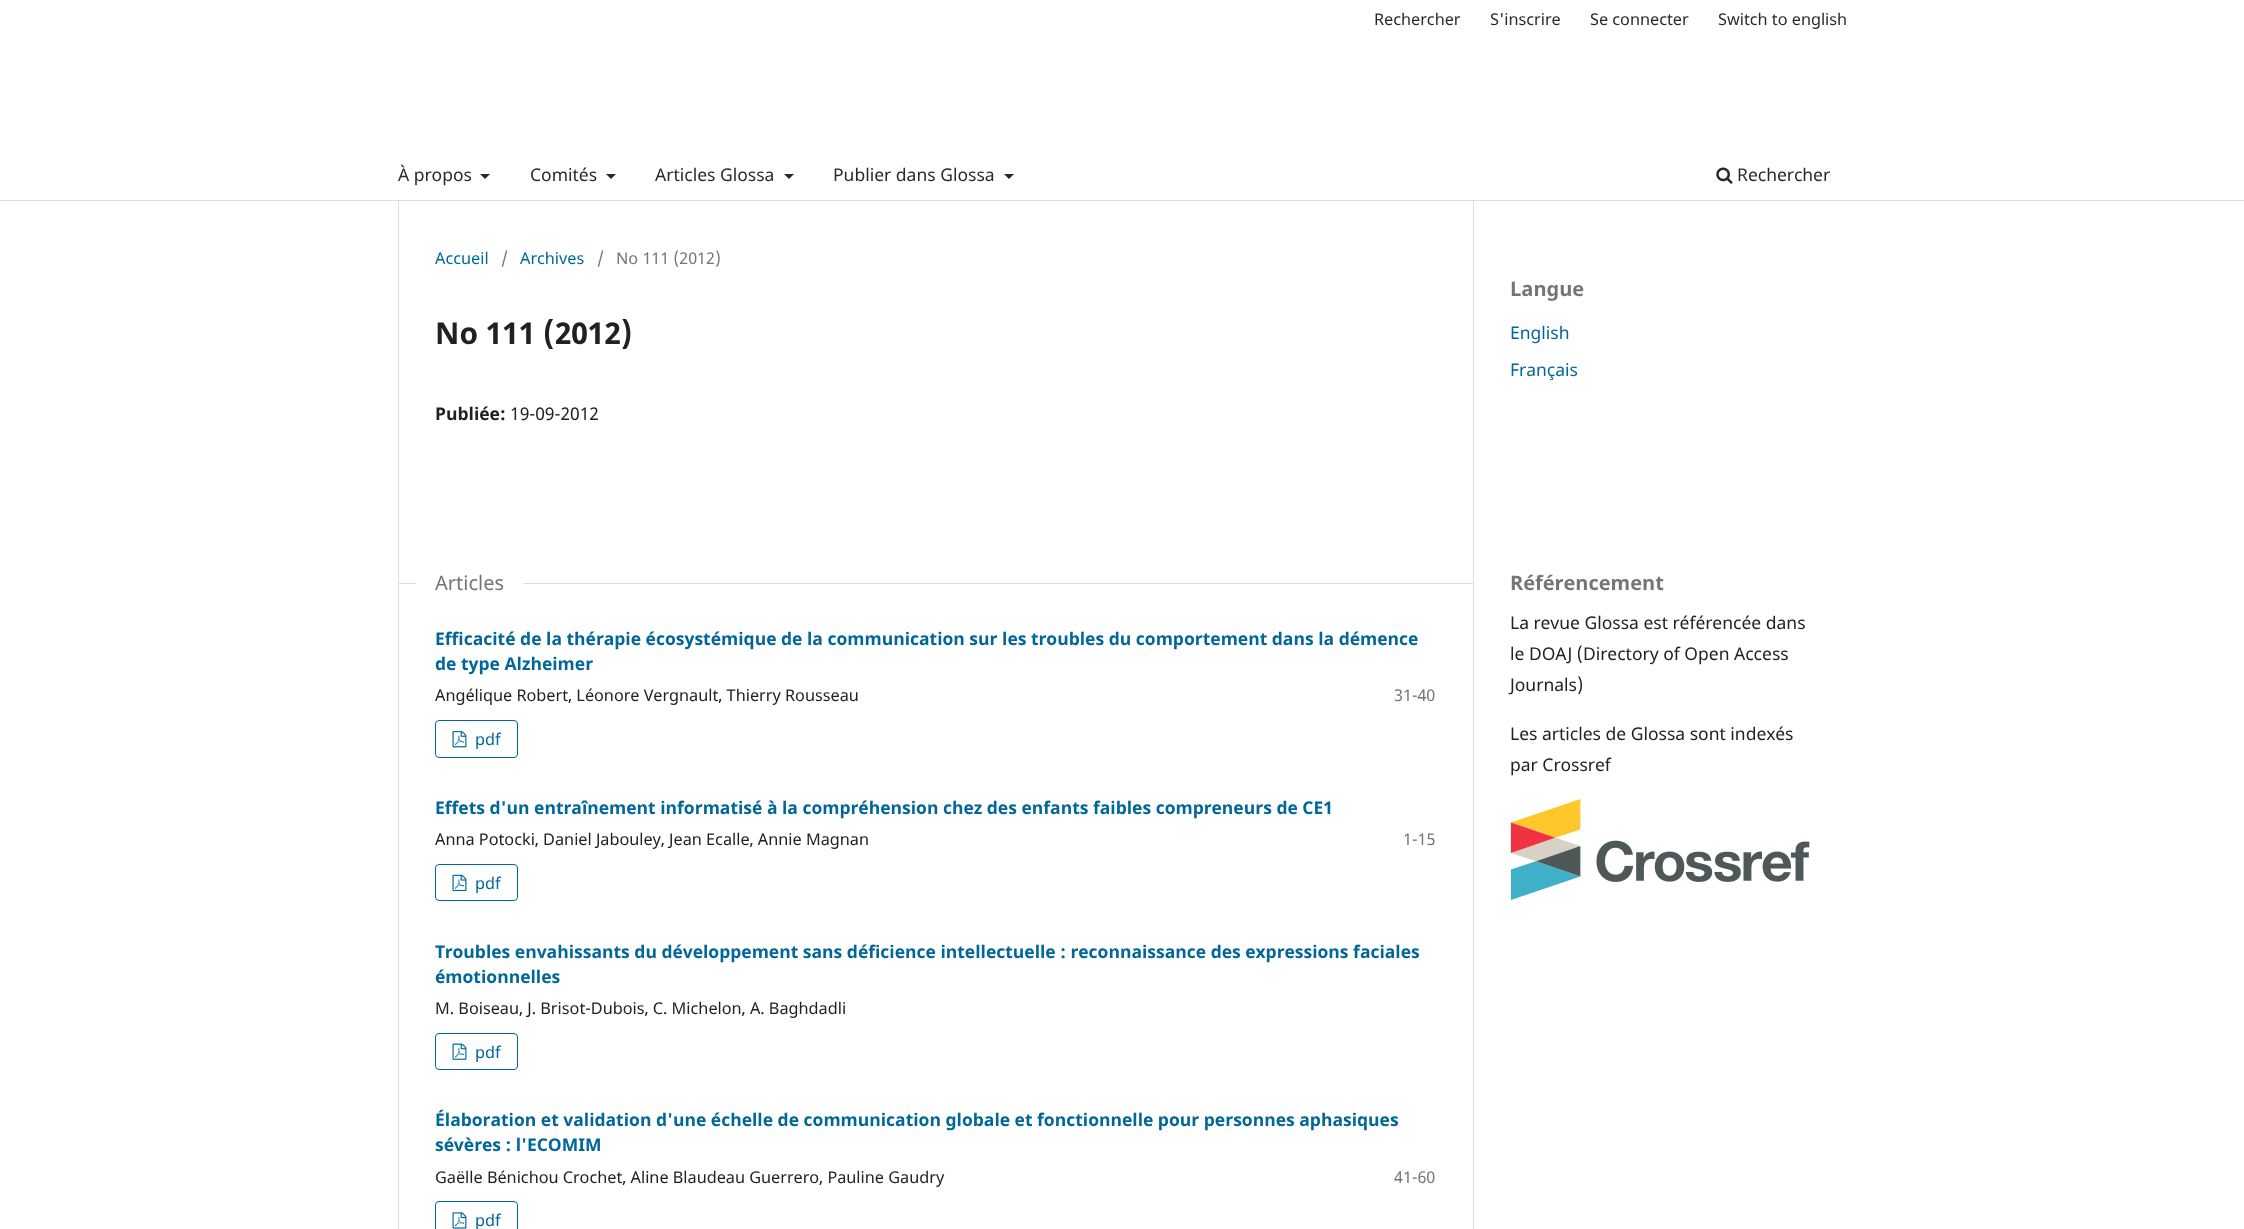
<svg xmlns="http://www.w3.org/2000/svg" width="2244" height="1229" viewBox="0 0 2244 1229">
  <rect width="100%" height="100%" fill="#fff"/>
  <path d="M0 200h2244v1H0z" fill="#ddd"/>
  <path d="M480 174H490L485 179Z" fill="#292929"/>
  <path d="M606 174H616L611 179Z" fill="#292929"/>
  <path d="M784 174H794L789 179Z" fill="#292929"/>
  <path d="M1004 174H1014L1009 179Z" fill="#292929"/>
  <image x="1716" y="167" width="17" height="17" href="img/1.png"/>
  <path d="M398 201h1v1028H398z" fill="#ddd"/>
  <path d="M398 583h1075v1H398z" fill="#ddd"/>
  <path d="M416 583h107v1H416z" fill="#fff"/>
  <rect x="435.5" y="720.5" width="82" height="37" rx="3.5" fill="none" stroke="#006798"/>
  <image x="452" y="731" width="15" height="17" href="img/2.png"/>
  <rect x="435.5" y="864.5" width="82" height="36" rx="3.5" fill="none" stroke="#006798"/>
  <image x="452" y="874" width="15" height="18" href="img/3.png"/>
  <rect x="435.5" y="1033.5" width="82" height="36" rx="3.5" fill="none" stroke="#006798"/>
  <image x="452" y="1043" width="15" height="17" href="img/4.png"/>
  <rect x="435.5" y="1201.5" width="82" height="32" rx="3.5" fill="none" stroke="#006798"/>
  <image x="452" y="1212" width="15" height="17" href="img/5.png"/>
  <path d="M1473 201h1v1028H1473z" fill="#ddd"/>
  <image x="1510" y="799" width="300" height="101" href="img/6.png"/>
  <g font-family="Noto Sans" font-size="16.25" fill="#292929">
    <text x="1374" y="25">Rechercher</text>
    <text x="1490" y="25">S'inscrire</text>
    <text x="1590" y="25">Se connecter</text>
    <text x="1718" y="25">Switch to english</text>
  </g>
  <g font-family="Noto Sans" font-size="17.5" fill="#292929">
    <text x="398" y="181">À propos</text>
    <text x="530" y="181">Comités</text>
    <text x="655" y="181">Articles Glossa</text>
    <text x="833" y="181">Publier dans Glossa</text>
    <text x="1737" y="181">Rechercher</text>
  </g>
  <text x="435" y="264" font-family="Noto Sans" font-size="16.25" fill="#006798">Accueil</text>
  <text x="501" y="264" font-family="Noto Sans" font-size="16.25" fill="#757575">/</text>
  <text x="520" y="264" font-family="Noto Sans" font-size="16.25" fill="#006798">Archives</text>
  <g font-family="Noto Sans" font-size="16.25" fill="#757575">
    <text x="597" y="264">/</text>
    <text x="616" y="264">No 111 (2012)</text>
  </g>
  <text x="435" y="344" font-family="Noto Sans" font-size="30" font-weight="bold" fill="#212121">No 111 (2012)</text>
  <text x="435" y="420" font-family="Noto Sans" font-size="17.5" font-weight="bold" fill="#212121">Publiée:</text>
  <text x="510" y="420" font-family="Noto Sans" font-size="17.5" fill="#212121">19-09-2012</text>
  <text x="435" y="590" font-family="Noto Sans" font-size="20" fill="#757575">Articles</text>
  <g font-family="Noto Sans" font-size="17.5" font-weight="bold" fill="#006798">
    <text x="435" y="645">Efficacité de la thérapie écosystémique de la communication sur les troubles du comportement dans la démence</text>
    <text x="435" y="670">de type Alzheimer</text>
  </g>
  <text x="435" y="701" font-family="Noto Sans" font-size="16.25" fill="#212121">Angélique Robert, Léonore Vergnault, Thierry Rousseau</text>
  <text x="1394" y="701" font-family="Noto Sans" font-size="16.25" fill="#757575">31-40</text>
  <text x="475" y="745" font-family="Noto Sans" font-size="16.25" fill="#006798">pdf</text>
  <text x="435" y="814" font-family="Noto Sans" font-size="17.5" font-weight="bold" fill="#006798">Effets d'un entraînement informatisé à la compréhension chez des enfants faibles compreneurs de CE1</text>
  <text x="435" y="845" font-family="Noto Sans" font-size="16.25" fill="#212121">Anna Potocki, Daniel Jabouley, Jean Ecalle, Annie Magnan</text>
  <text x="1403" y="845" font-family="Noto Sans" font-size="16.25" fill="#757575">1-15</text>
  <text x="475" y="889" font-family="Noto Sans" font-size="16.25" fill="#006798">pdf</text>
  <g font-family="Noto Sans" font-size="17.5" font-weight="bold" fill="#006798">
    <text x="435" y="958">Troubles envahissants du développement sans déficience intellectuelle : reconnaissance des expressions faciales</text>
    <text x="435" y="983">émotionnelles</text>
  </g>
  <text x="435" y="1014" font-family="Noto Sans" font-size="16.25" fill="#212121">M. Boiseau, J. Brisot-Dubois, C. Michelon, A. Baghdadli</text>
  <text x="475" y="1058" font-family="Noto Sans" font-size="16.25" fill="#006798">pdf</text>
  <g font-family="Noto Sans" font-size="17.5" font-weight="bold" fill="#006798">
    <text x="435" y="1126">Élaboration et validation d'une échelle de communication globale et fonctionnelle pour personnes aphasiques</text>
    <text x="435" y="1151">sévères : l'ECOMIM</text>
  </g>
  <text x="435" y="1183" font-family="Noto Sans" font-size="16.25" fill="#212121">Gaëlle Bénichou Crochet, Aline Blaudeau Guerrero, Pauline Gaudry</text>
  <text x="1394" y="1183" font-family="Noto Sans" font-size="16.25" fill="#757575">41-60</text>
  <text x="475" y="1226" font-family="Noto Sans" font-size="16.25" fill="#006798">pdf</text>
  <text x="1510" y="296" font-family="Noto Sans" font-size="20" font-weight="bold" fill="#757575">Langue</text>
  <g font-family="Noto Sans" font-size="17.5" fill="#006798">
    <text x="1510" y="339">English</text>
    <text x="1510" y="376">Français</text>
  </g>
  <text x="1510" y="590" font-family="Noto Sans" font-size="20" font-weight="bold" fill="#757575">Référencement</text>
  <g font-family="Noto Sans" font-size="17.5" fill="#212121">
    <text x="1510" y="629">La revue Glossa est référencée dans</text>
    <text x="1510" y="660">le DOAJ (Directory of Open Access</text>
    <text x="1510" y="691">Journals)</text>
    <text x="1510" y="740">Les articles de Glossa sont indexés</text>
    <text x="1510" y="771">par Crossref</text>
  </g>
</svg>
